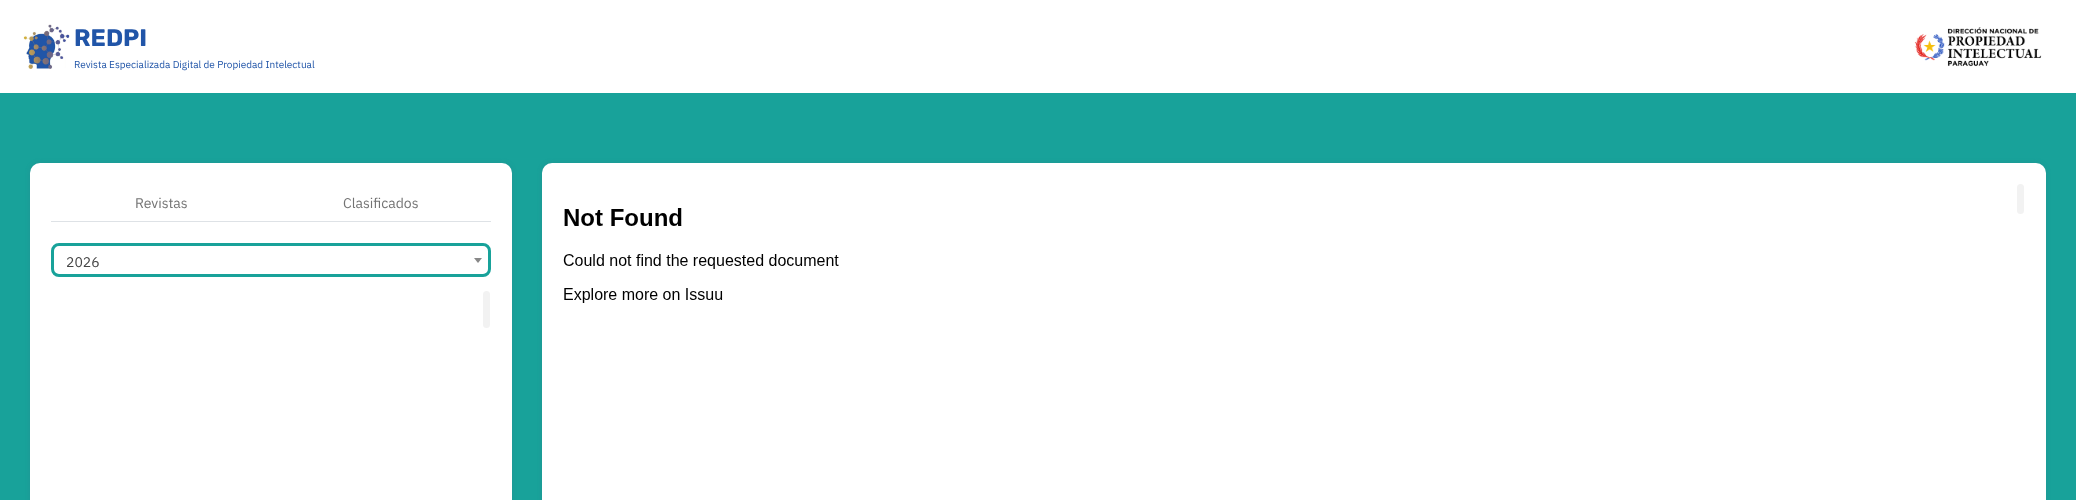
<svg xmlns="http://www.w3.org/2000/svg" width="2076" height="500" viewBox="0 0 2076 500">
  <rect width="100%" height="100%" fill="#18a29a"/>
  <path d="M0 0h2076v93H0z" fill="#fff"/>
  <image x="23" y="24" width="47" height="45" href="img/1.png"/>
  <image x="1914" y="27" width="128" height="40" href="img/2.png"/>
  <rect x="30" y="163" width="482" height="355" rx="10" fill="#475f7b33" filter="blur(2.5px)"/>
  <rect x="30" y="163" width="482" height="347" rx="10" fill="#fff"/>
  <path d="M51 221h440v1H51z" fill="#dee2e6"/>
  <rect x="52.5" y="244.5" width="437" height="31" rx="6.5" fill="none" stroke="#18a29a" stroke-width="3"/>
  <path d="M474 258H482L478 263Z" fill="#888"/>
  <rect x="483" y="291" width="7" height="37" rx="3.5" fill="#f2f2f2"/>
  <rect x="542" y="163" width="1504" height="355" rx="10" fill="#475f7b33" filter="blur(2.5px)"/>
  <rect x="542" y="163" width="1504" height="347" rx="10" fill="#fff"/>
  <rect x="2017" y="184" width="7" height="30" rx="3.5" fill="#f2f2f2"/>
  <image x="563" y="208" width="276" height="95" href="img/3.png"/>
  <text x="74" y="46" font-family="Rubik" font-size="24" font-weight="bold" fill="#2155a8">REDPI</text>
  <text x="74" y="68" font-family="IBM Plex Sans" font-size="10" fill="#2155a8">Revista Especializada Digital de Propiedad Intelectual</text>
  <g font-family="IBM Plex Sans" font-size="14" fill="#737373">
    <text x="135" y="208">Revistas</text>
    <text x="343" y="208">Clasificados</text>
  </g>
  <text x="66" y="267" font-family="IBM Plex Sans" font-size="14" fill="#444">2026</text>
</svg>
